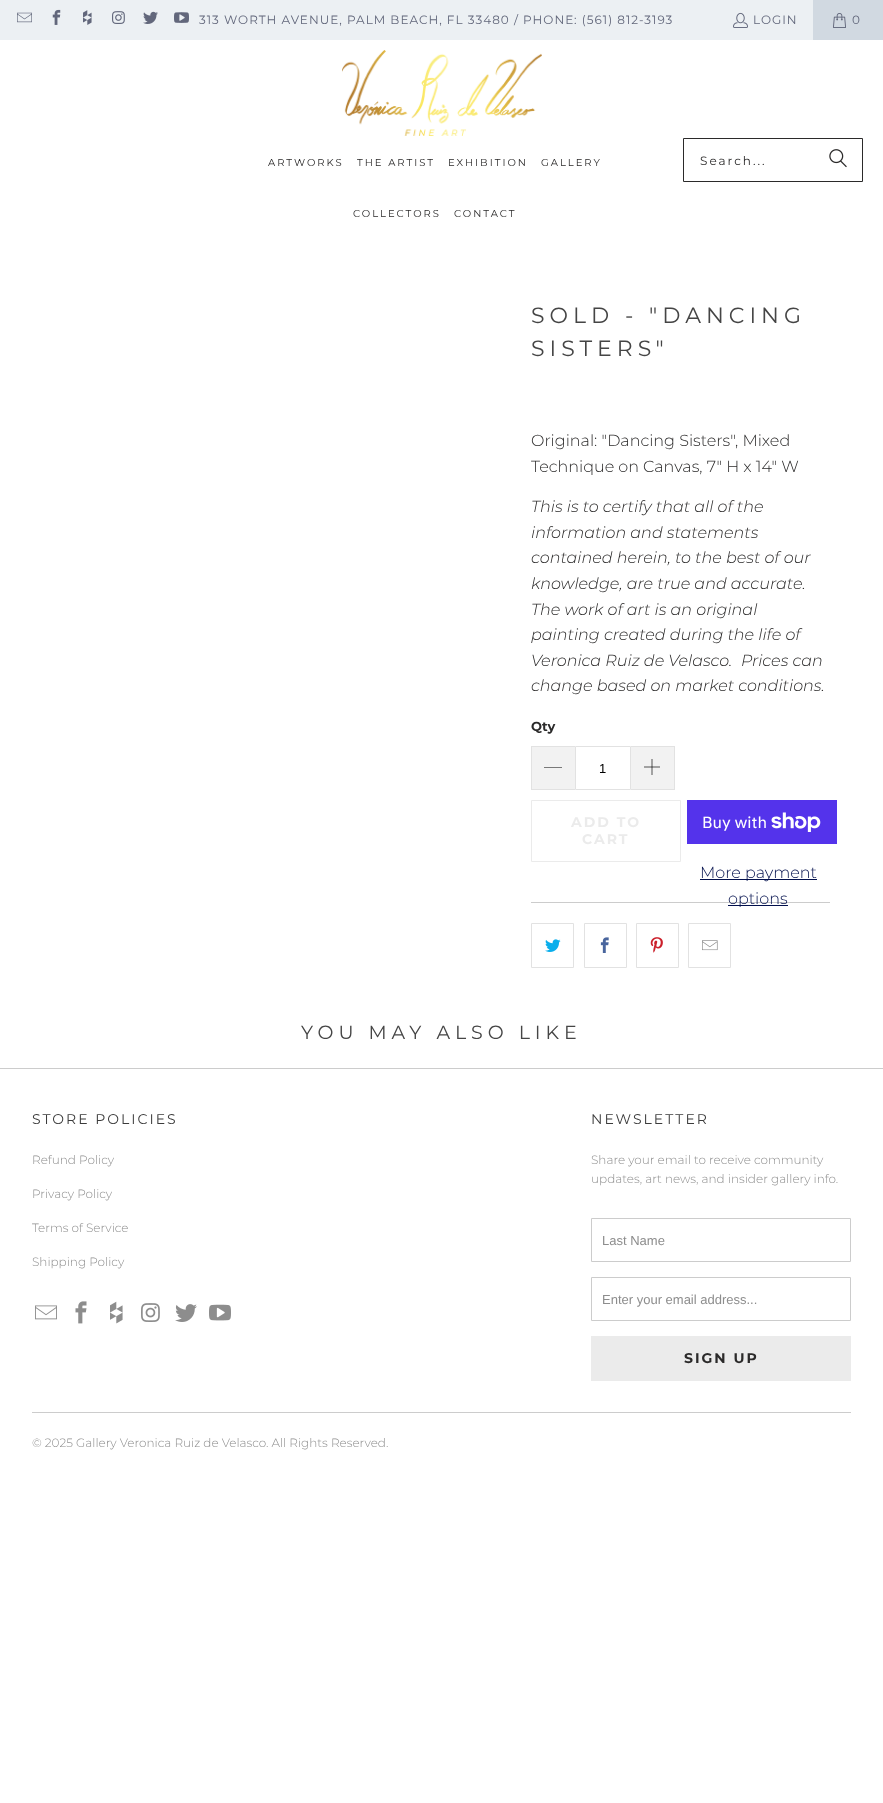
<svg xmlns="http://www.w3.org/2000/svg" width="883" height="1803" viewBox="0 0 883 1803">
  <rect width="100%" height="100%" fill="#fff"/>
  <path d="M0 0h813v40H0z" fill="#ecf0f3"/>
  <image x="17" y="12" width="15" height="11" href="img/1.png"/>
  <image x="52" y="9" width="9" height="16" href="img/2.png"/>
  <image x="83" y="10" width="9" height="15" href="img/3.png"/>
  <image x="112" y="11" width="13" height="13" href="img/4.png"/>
  <image x="143" y="11" width="15" height="13" href="img/5.png"/>
  <image x="174" y="12" width="15" height="11" href="img/6.png"/>
  <image x="733" y="12" width="15" height="16" href="img/7.png"/>
  <path d="M813 0h70v40H813z" fill="#d1d9e1"/>
  <image x="833" y="13" width="13" height="15" href="img/8.png"/>
  <image x="342" y="50" width="200" height="86" href="img/9.png"/>
  <path d="M683.5 138.5h179v43H683.5z" fill="none" stroke="#2b2a2a"/>
  <image x="829" y="149" width="18" height="19" href="img/10.png"/>
  <path d="M532 747h43v42H532z" fill="#f2f2f2"/>
  <path d="M531 746h44v1H531z" fill="#e2e2e2"/>
  <path d="M531 789h44v1H531z" fill="#e2e2e2"/>
  <path d="M531 746h1v44H531z" fill="#e2e2e2"/>
  <path d="M544 767H562V767.5H544Z" fill="#000"/>
  <path d="M575.5 746.5h55v43H575.5z" fill="none" stroke="#e2e2e2"/>
  <path d="M631 747h43v42H631z" fill="#f2f2f2"/>
  <path d="M631 746h44v1H631z" fill="#e2e2e2"/>
  <path d="M674 746h1v44H674z" fill="#e2e2e2"/>
  <path d="M631 789h44v1H631z" fill="#e2e2e2"/>
  <image x="644" y="759" width="16" height="16" href="img/11.png"/>
  <path d="M531.5 800.5h149v61H531.5z" fill="none" stroke="#ebebeb"/>
  <path d="M687 800h150v44H687z" fill="#5433eb"/>
  <image x="771" y="812" width="50" height="20" href="img/12.png"/>
  <path d="M700 879h117v1H700z" fill="#020f4c"/>
  <path d="M728 905h60v1H728z" fill="#020f4c"/>
  <path d="M531 902h299v1H531z" fill="#ccc"/>
  <path d="M531.5 923.5h42v44H531.5z" fill="none" stroke="#e2e2e2"/>
  <image x="545" y="939" width="16" height="13" href="img/13.png"/>
  <path d="M584.5 923.5h42v44H584.5z" fill="none" stroke="#e2e2e2"/>
  <image x="600" y="937" width="9" height="16" href="img/14.png"/>
  <path d="M636.5 923.5h42v44H636.5z" fill="none" stroke="#e2e2e2"/>
  <image x="650" y="937" width="13" height="16" href="img/15.png"/>
  <path d="M688.5 923.5h42v44H688.5z" fill="none" stroke="#e2e2e2"/>
  <image x="702" y="940" width="16" height="11" href="img/16.png"/>
  <path d="M0 1068h883v1H0z" fill="#ccc"/>
  <image x="35" y="1305" width="22" height="15" href="img/17.png"/>
  <image x="75" y="1301" width="12" height="23" href="img/18.png"/>
  <image x="110" y="1301" width="13" height="23" href="img/19.png"/>
  <image x="141" y="1303" width="19" height="19" href="img/20.png"/>
  <image x="175" y="1304" width="22" height="18" href="img/21.png"/>
  <image x="209" y="1304" width="22" height="17" href="img/22.png"/>
  <path d="M591.5 1218.5h259v43H591.5z" fill="none" stroke="#ccc"/>
  <path d="M591.5 1277.5h259v43H591.5z" fill="none" stroke="#ccc"/>
  <path d="M591 1336h260v45H591z" fill="#ebebeb"/>
  <path d="M32 1412h819v1H32z" fill="#ccc"/>
  <g font-family="Montserrat" font-size="12" letter-spacing="1" fill="#62677b">
    <text x="199" y="24">313 WORTH AVENUE, PALM BEACH, FL 33480 / PHONE: (561) 812-3193</text>
    <text x="753" y="24">LOGIN</text>
    <text x="852" y="24">0</text>
  </g>
  <g font-family="Montserrat" font-size="10" letter-spacing="2" fill="#2b2a2a">
    <text x="268" y="166">ARTWORKS</text>
    <text x="357" y="166">THE ARTIST</text>
    <text x="448" y="166">EXHIBITION</text>
    <text x="541" y="166">GALLERY</text>
    <text x="353" y="217">COLLECTORS</text>
    <text x="454" y="217">CONTACT</text>
  </g>
  <text x="700" y="165" font-family="Montserrat" font-size="12" letter-spacing="2" fill="#2b2a2a">Search...</text>
  <g font-family="Montserrat" font-size="22" letter-spacing="5" fill="#454545">
    <text x="531" y="323">SOLD - "DANCING</text>
    <text x="531" y="356">SISTERS"</text>
  </g>
  <g font-family="Montserrat" font-size="16" font-weight="300" fill="#2b2a2a">
    <text x="531" y="446">Original: "Dancing Sisters", Mixed</text>
    <text x="531" y="472">Technique on Canvas, 7" H x 14" W</text>
  </g>
  <g font-family="Montserrat" font-size="16" font-weight="300" font-style="italic" fill="#2b2a2a">
    <text x="531" y="512">This is to certify that all of the</text>
    <text x="531" y="538">information and statements</text>
    <text x="531" y="563">contained herein, to the best of our</text>
    <text x="531" y="589">knowledge, are true and accurate.</text>
    <text x="531" y="615">The work of art is an original</text>
    <text x="531" y="640">painting created during the life of</text>
    <text x="531" y="666">Veronica Ruiz de Velasco.</text>
    <text x="741" y="666">Prices can</text>
    <text x="531" y="691">change based on market conditions.</text>
  </g>
  <text x="531" y="731" font-family="Montserrat" font-size="13" font-weight="bold" fill="#2b2a2a">Qty</text>
  <text x="599" y="773" font-family="Liberation Sans" font-size="13" fill="#000">1</text>
  <g font-family="Montserrat" font-size="14" font-weight="bold" letter-spacing="2" fill="#ebebeb">
    <text x="571" y="827">ADD TO</text>
    <text x="582" y="844">CART</text>
  </g>
  <text x="702" y="828" font-family="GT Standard" font-size="16" fill="#fff">Buy with</text>
  <g font-family="Montserrat" font-size="16" font-weight="300" fill="#020f4c">
    <text x="700" y="878">More payment</text>
    <text x="728" y="904">options</text>
  </g>
  <text x="301" y="1039" font-family="Montserrat" font-size="19" letter-spacing="5" fill="#454545">YOU MAY ALSO LIKE</text>
  <text x="32" y="1124" font-family="Montserrat" font-size="14" letter-spacing="2" fill="#3b3b3b">STORE POLICIES</text>
  <g font-family="Montserrat" font-size="12" font-weight="300" fill="#8d8d8d">
    <text x="32" y="1164">Refund Policy</text>
    <text x="32" y="1198">Privacy Policy</text>
    <text x="32" y="1232">Terms of Service</text>
    <text x="32" y="1266">Shipping Policy</text>
  </g>
  <text x="591" y="1124" font-family="Montserrat" font-size="14" letter-spacing="2" fill="#3b3b3b">NEWSLETTER</text>
  <g font-family="Montserrat" font-size="12" font-weight="300" fill="#8d8d8d">
    <text x="591" y="1164">Share your email to receive community</text>
    <text x="591" y="1183">updates, art news, and insider gallery info.</text>
  </g>
  <g font-family="Liberation Sans" font-size="13" fill="#8d8d8d">
    <text x="602" y="1245">Last Name</text>
    <text x="602" y="1304">Enter your email address...</text>
  </g>
  <text x="684" y="1363" font-family="Montserrat" font-size="14" font-weight="bold" letter-spacing="2" fill="#2b2a2a">SIGN UP</text>
  <g font-family="Montserrat" font-size="12" font-weight="300" fill="#8d8d8d">
    <text x="32" y="1447">© 2025 Gallery Veronica Ruiz de Velasco</text>
    <text x="266" y="1447">. All Rights Reserved.</text>
  </g>
</svg>
